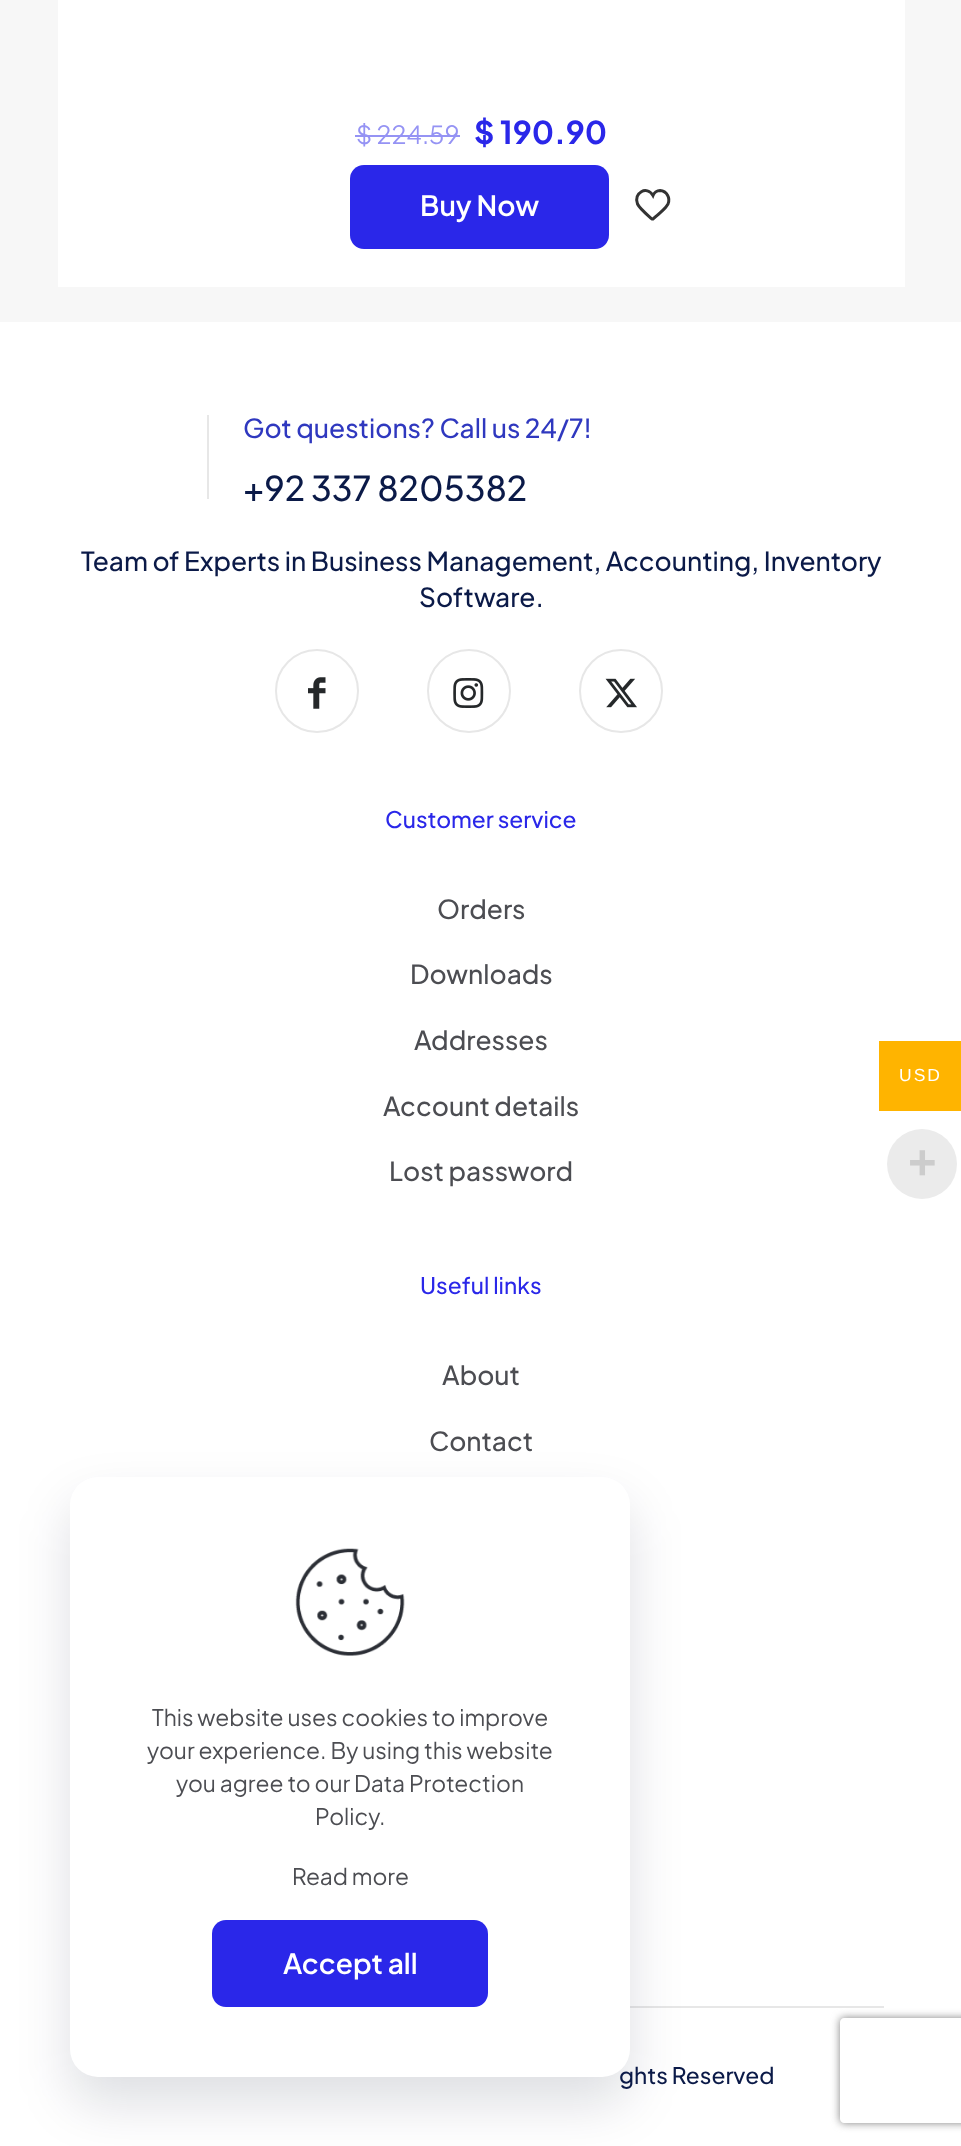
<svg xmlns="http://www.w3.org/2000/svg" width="961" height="2146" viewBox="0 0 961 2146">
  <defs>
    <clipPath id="clip1"><path d="M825 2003H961V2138H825ZM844 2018H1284C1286 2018 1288 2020 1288 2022V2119C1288 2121 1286 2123 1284 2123H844C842 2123 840 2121 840 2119V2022C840 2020 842 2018 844 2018Z" clip-rule="evenodd"/></clipPath>
  </defs>
  <rect width="100%" height="100%" fill="#f7f7f7"/>
  <path d="M58 0h847v287H58z" fill="#fff"/>
  <path d="M355 135h105v2H355z" fill="#9593f4"/>
  <rect x="350" y="165" width="259" height="84" rx="14" fill="#2a27e9"/>
  <path d="M660 190.5C657 190.5 654 193 653 195.5C647 185 633 193 637.5 204C640 209 647.5 215 652 219H653L656.5 216C659.5 213 663 210.5 665.5 207.5L668 204C670.5 198 667 191 660 190.5Z" fill="none" stroke="#333" stroke-width="3"/>
  <path d="M0 322h961v1824H0z" fill="#fff"/>
  <path d="M207 415h2v84H207z" fill="#e7e7e7"/>
  <circle cx="317" cy="691" r="41" fill="none" stroke="#e7e7e7" stroke-width="2"/>
  <image x="308" y="677" width="18" height="32" href="img/1.png"/>
  <circle cx="469" cy="691" r="41" fill="none" stroke="#e7e7e7" stroke-width="2"/>
  <image x="453" y="678" width="31" height="30" href="img/2.png"/>
  <circle cx="621" cy="691" r="41" fill="none" stroke="#e7e7e7" stroke-width="2"/>
  <image x="605" y="678" width="32" height="30" href="img/3.png"/>
  <g clip-path="url(#clip1)">
    <rect x="840" y="2018" width="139" height="105" rx="4" fill="#808080" filter="blur(4.5px)"/>
  </g>
  <path d="M630 2006h254v2H630z" fill="#e7e7e7"/>
  <path d="M879 1041h82v70H879z" fill="#ffb400"/>
  <circle cx="922" cy="1164" r="35" fill="#ebebeb"/>
  <rect x="70" y="1503" width="560" height="601" rx="28" fill="#01072721" filter="blur(26px)"/>
  <text x="356" y="144" font-family="Plus Jakarta Sans" font-size="25" fill="#9593f4">$ 224.59</text>
  <text x="474" y="144" font-family="Plus Jakarta Sans" font-size="31.5" font-weight="bold" fill="#2a27e9">$ 190.90</text>
  <text x="420" y="216" font-family="Plus Jakarta Sans" font-size="28" font-weight="600" fill="#fff">Buy Now</text>
  <text x="243" y="438" font-family="Plus Jakarta Sans" font-size="26.25" font-weight="500" fill="#2f38bf">Got questions? Call us 24/7!</text>
  <text x="243" y="501" font-family="Plus Jakarta Sans" font-size="34.1" font-weight="500" fill="#0b1a48">+92 337 8205382</text>
  <g font-family="Plus Jakarta Sans" font-size="26.25" font-weight="500" fill="#0b1a48">
    <text x="81" y="571">Team of Experts in Business Management, Accounting, Inventory</text>
    <text x="419" y="607">Software.</text>
  </g>
  <text x="385" y="828" font-family="Plus Jakarta Sans" font-size="22.75" font-weight="500" fill="#2a27e9">Customer service</text>
  <g font-family="Plus Jakarta Sans" font-size="26.25" font-weight="500" fill="#4c4d52">
    <text x="437" y="919">Orders</text>
    <text x="410" y="984">Downloads</text>
    <text x="414" y="1050">Addresses</text>
    <text x="383" y="1116">Account details</text>
    <text x="389" y="1181">Lost password</text>
  </g>
  <text x="420" y="1294" font-family="Plus Jakarta Sans" font-size="22.75" font-weight="500" fill="#2a27e9">Useful links</text>
  <g font-family="Plus Jakarta Sans" font-size="26.25" font-weight="500" fill="#4c4d52">
    <text x="442" y="1385">About</text>
    <text x="429" y="1451">Contact</text>
  </g>
  <text x="619" y="2084" font-family="Plus Jakarta Sans" font-size="22.75" font-weight="500" fill="#0b1a48">ghts Reserved</text>
  <text x="899" y="1081" font-family="Liberation Sans" font-size="17.5" letter-spacing="2" fill="#fff">USD</text>
  <text x="908" y="1179" font-family="Liberation Sans" font-size="49" font-weight="bold" fill="#ccc">+</text>
  <rect x="70" y="1477" width="560" height="600" rx="28" fill="#fff"/>
  <image x="295" y="1548" width="110" height="108" href="img/4.png"/>
  <g font-family="Plus Jakarta Sans" font-size="22.75" fill="#4c4d52">
    <text x="152" y="1726">This website uses cookies to improve</text>
    <text x="147" y="1759">your experience. By using this website</text>
    <text x="176" y="1792">you agree to our Data Protection</text>
    <text x="315" y="1825">Policy</text>
    <text x="379" y="1825">.</text>
    <text x="292" y="1885">Read more</text>
  </g>
  <rect x="212" y="1920" width="276" height="87" rx="14" fill="#2a27e9"/>
  <text x="283" y="1974" font-family="Plus Jakarta Sans" font-size="28" font-weight="600" fill="#fff">Accept all</text>
</svg>
